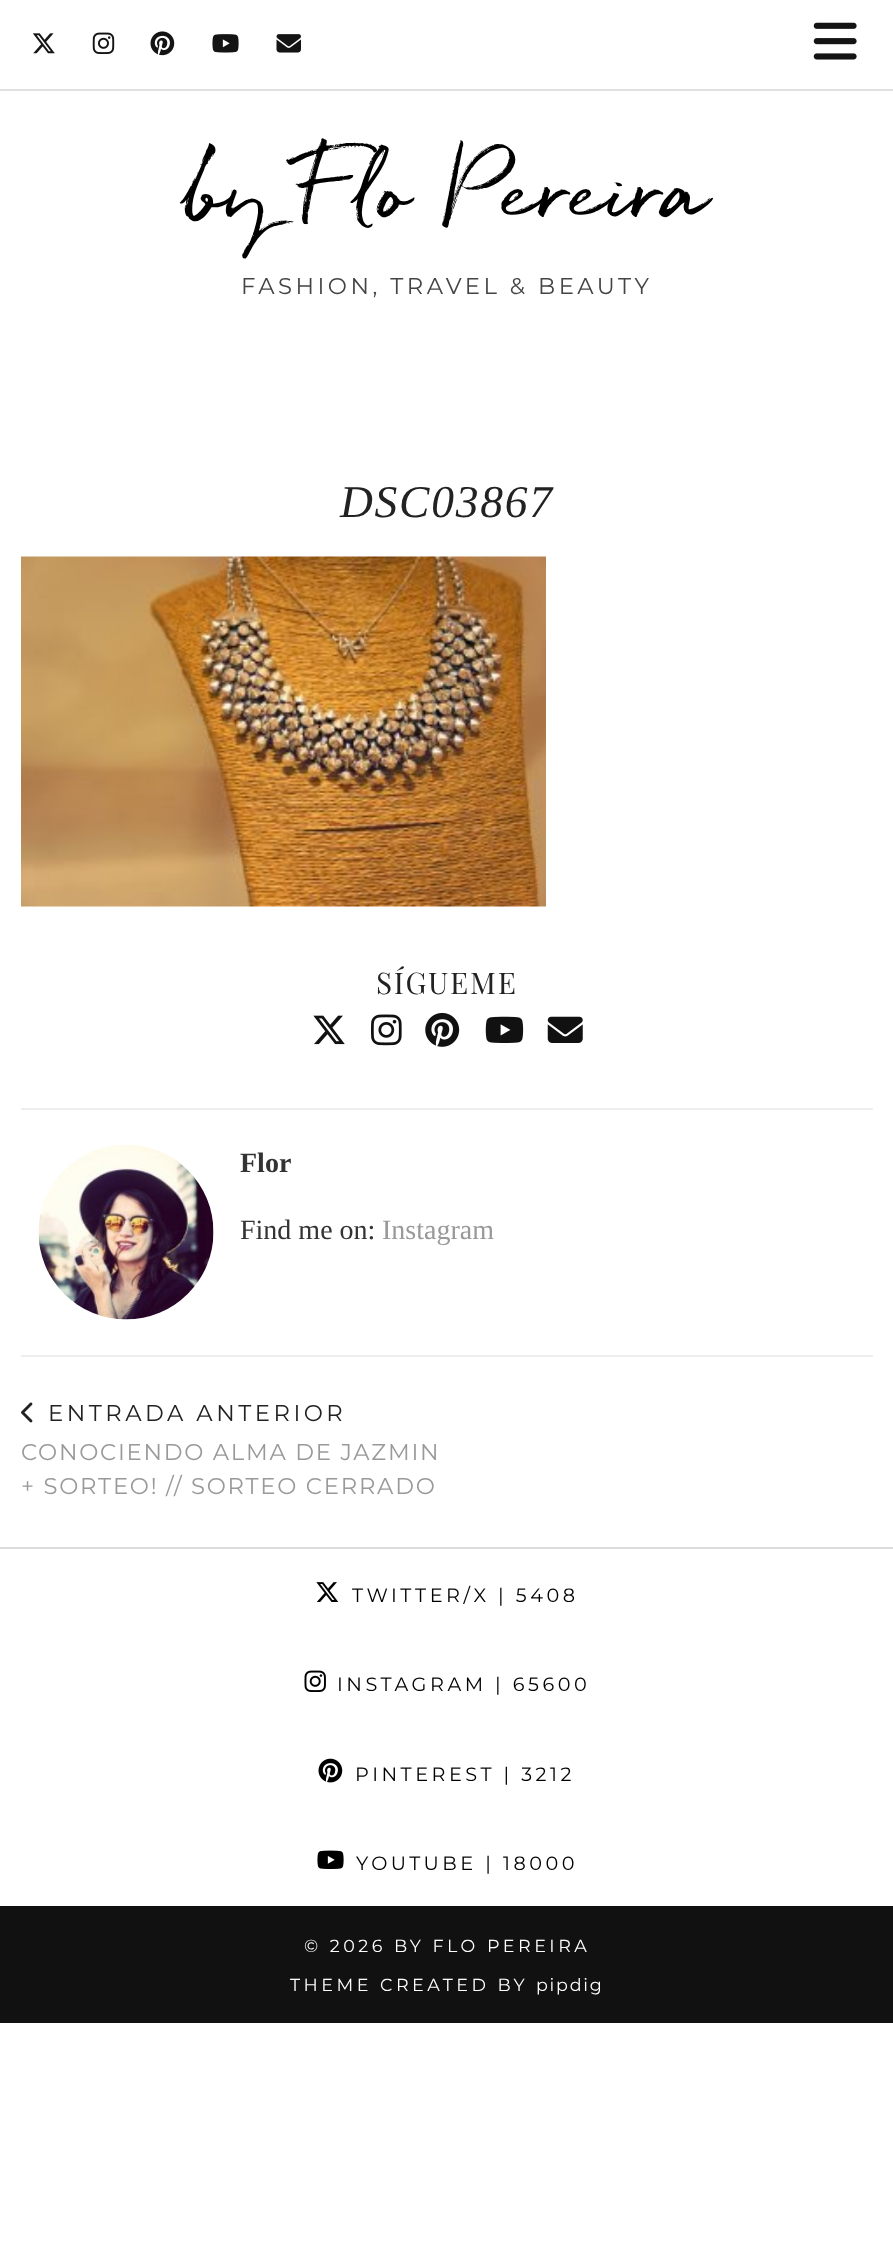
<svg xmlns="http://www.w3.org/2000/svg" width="893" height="2263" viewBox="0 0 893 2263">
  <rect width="100%" height="100%" fill="#fff"/>
  <path d="M0 89h893v2H0z" fill="#e0e0e0"/>
  <image x="32" y="33" width="23" height="21" href="img/1.png"/>
  <image x="92" y="32" width="23" height="22" href="img/2.png"/>
  <image x="150" y="31" width="25" height="25" href="img/3.png"/>
  <image x="212" y="34" width="27" height="19" href="img/4.png"/>
  <image x="276" y="34" width="25" height="19" href="img/5.png"/>
  <image x="813" y="22" width="44" height="38" href="img/6.png"/>
  <image x="21" y="556" width="525" height="351" href="img/7.png"/>
  <image x="313" y="1015" width="32" height="30" href="img/8.png"/>
  <image x="371" y="1014" width="31" height="32" href="img/9.png"/>
  <image x="425" y="1012" width="35" height="35" href="img/10.png"/>
  <image x="485" y="1016" width="39" height="27" href="img/11.png"/>
  <image x="547" y="1016" width="36" height="27" href="img/12.png"/>
  <path d="M21 1108h852v2H21z" fill="#eee"/>
  <path d="M21 1355h852v2H21z" fill="#eee"/>
  <image x="38" y="1144" width="176" height="176" href="img/13.png"/>
  <image x="21" y="1402" width="12" height="21" href="img/14.png"/>
  <path d="M0 1547h893v2H0z" fill="#ddd"/>
  <image x="316" y="1582" width="23" height="20" href="img/15.png"/>
  <image x="304" y="1670" width="22" height="22" href="img/16.png"/>
  <image x="318" y="1758" width="25" height="25" href="img/17.png"/>
  <image x="317" y="1850" width="27" height="19" href="img/18.png"/>
  <path d="M0 1906h893v117H0z" fill="#111"/>
  <text x="184" y="215" font-family="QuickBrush" font-size="80.5" fill="#000">by Flo Pereira</text>
  <text x="241" y="294" font-family="Montserrat" font-size="22.75" font-weight="100" letter-spacing="3.5" fill="#444">FASHION, TRAVEL &amp; BEAUTY</text>
  <text x="340" y="517" font-family="Liberation Serif" font-size="45.5" font-style="italic" letter-spacing="1.75" fill="#222">DSC03867</text>
  <text x="376" y="994" font-family="Playfair Display SC" font-size="29.75" letter-spacing="1.75" fill="#222">SÍGUEME</text>
  <text x="240" y="1172" font-family="Liberation Serif" font-size="28" font-weight="bold" fill="#333">Flor</text>
  <text x="240" y="1239" font-family="Liberation Serif" font-size="28" fill="#333">Find me on:</text>
  <text x="382" y="1239" font-family="Liberation Serif" font-size="28" fill="#999">Instagram</text>
  <text x="48" y="1421" font-family="Montserrat" font-size="22.75" font-weight="100" letter-spacing="3.5" fill="#222">ENTRADA ANTERIOR</text>
  <g font-family="Montserrat" font-size="22.75" font-weight="100" letter-spacing="1.75" fill="#999">
    <text x="21" y="1460">CONOCIENDO ALMA DE JAZMIN</text>
    <text x="21" y="1494">+ SORTEO! // SORTEO CERRADO</text>
  </g>
  <g font-family="Montserrat" font-size="19.25" font-weight="100" letter-spacing="3.5" fill="#000">
    <text x="352" y="1602">TWITTER/X | 5408</text>
    <text x="337" y="1691">INSTAGRAM | 65600</text>
    <text x="355" y="1781">PINTEREST | 3212</text>
    <text x="356" y="1870">YOUTUBE | 18000</text>
  </g>
  <g font-family="Montserrat" font-size="17.5" font-weight="100" letter-spacing="3.5" fill="#fff">
    <text x="304" y="1952">© 2026 BY FLO PEREIRA</text>
    <text x="290" y="1991">THEME CREATED BY</text>
  </g>
  <text x="536" y="1991" font-family="Montserrat" font-size="17.5" font-weight="100" letter-spacing="1.75" fill="#fff">pipdig</text>
</svg>
